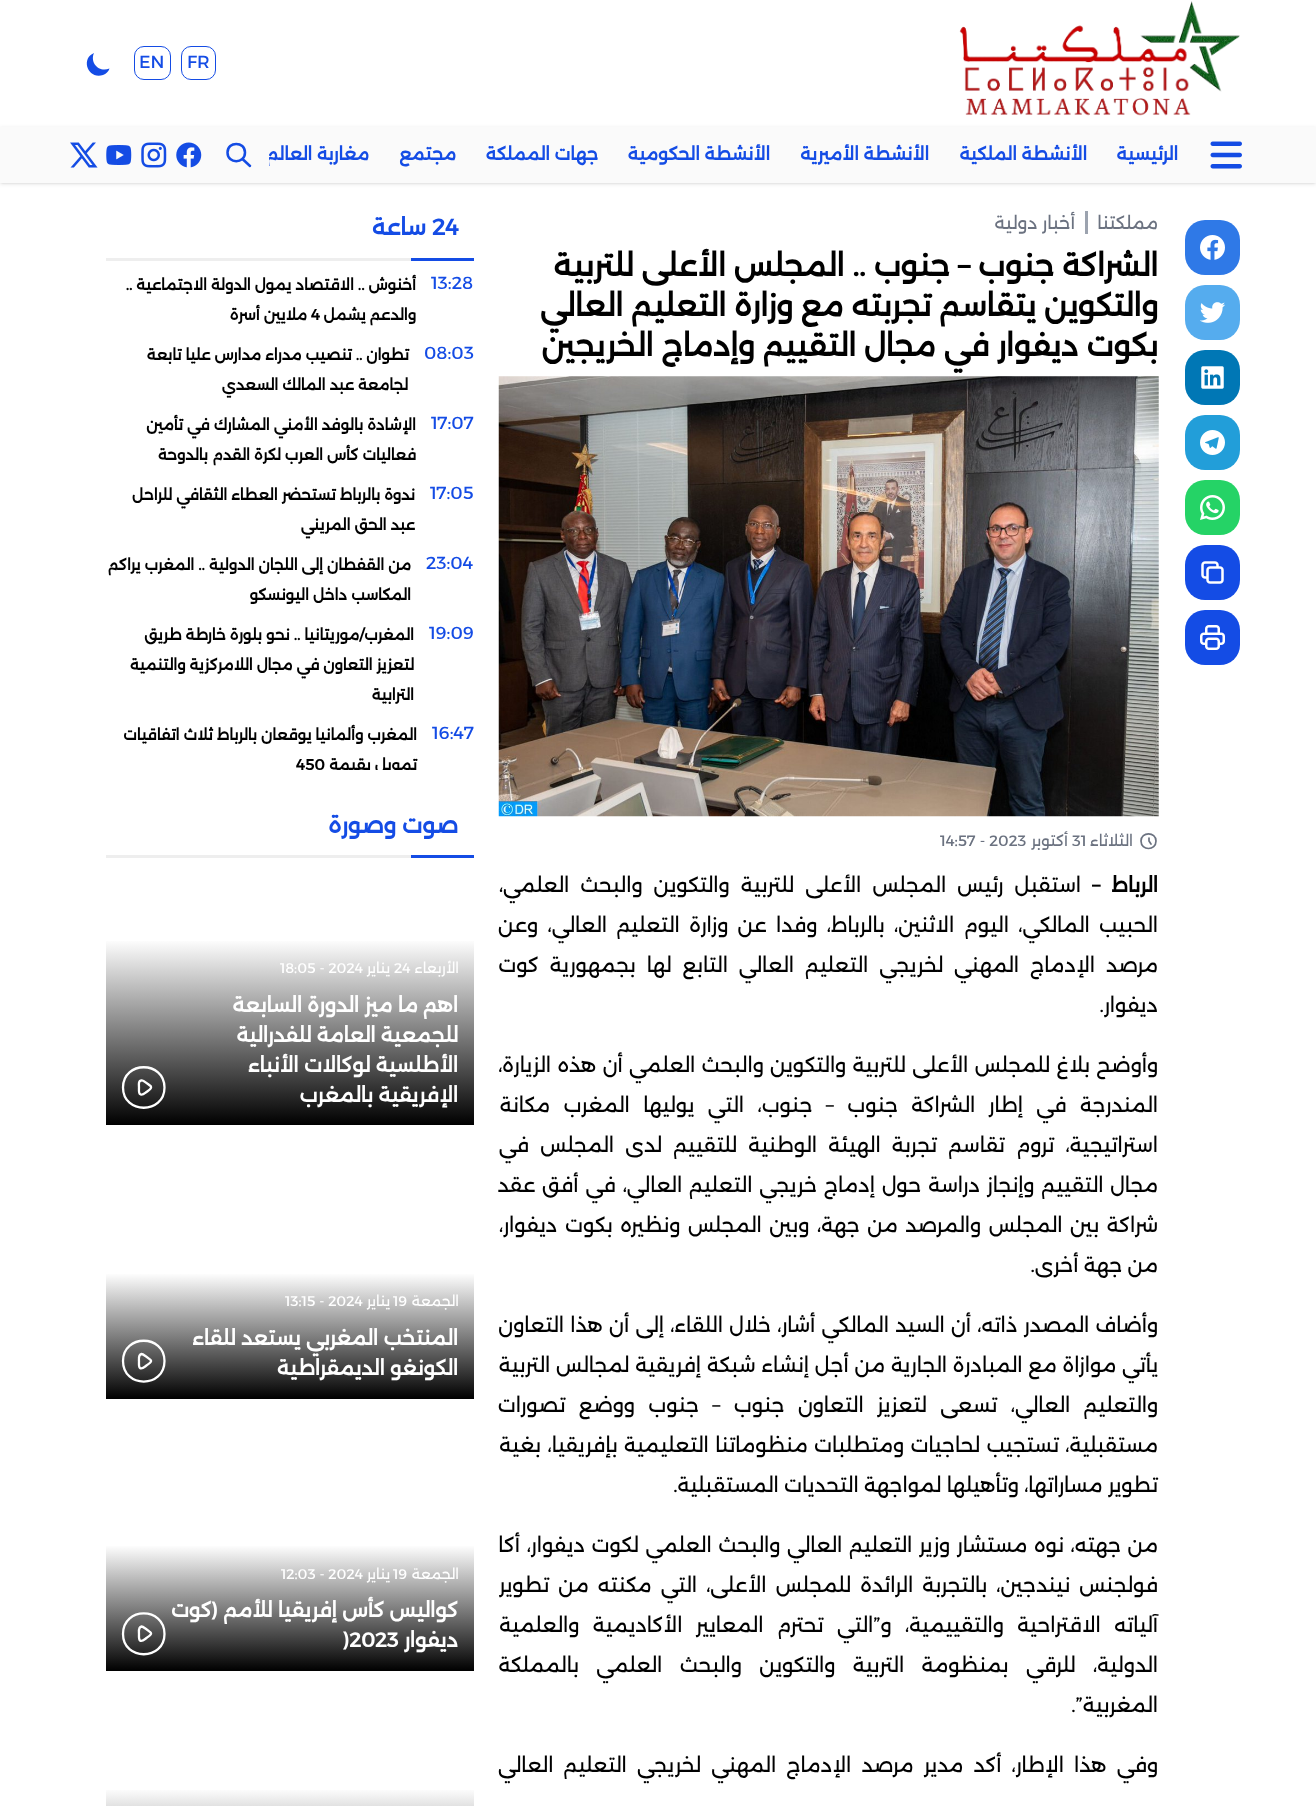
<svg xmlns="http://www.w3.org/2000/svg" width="1316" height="1806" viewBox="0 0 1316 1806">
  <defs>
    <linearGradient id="g1" gradientUnits="userSpaceOnUse" x1="290" y1="1125" x2="290" y2="939"><stop offset="0" stop-color="#000"/><stop offset="1" stop-color="#fff"/></linearGradient>
    <linearGradient id="g2" gradientUnits="userSpaceOnUse" x1="290" y1="1399" x2="290" y2="1273"><stop offset="0" stop-color="#000"/><stop offset="1" stop-color="#fff"/></linearGradient>
    <linearGradient id="g3" gradientUnits="userSpaceOnUse" x1="290" y1="1671" x2="290" y2="1545"><stop offset="0" stop-color="#000"/><stop offset="1" stop-color="#fff"/></linearGradient>
    <linearGradient id="g4" gradientUnits="userSpaceOnUse" x1="290" y1="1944" x2="290" y2="1788"><stop offset="0" stop-color="#000"/><stop offset="1" stop-color="#fff"/></linearGradient>
    <clipPath id="clip1"><path d="M269 126h925v57H269z"/></clipPath>
    <clipPath id="clip2"><path d="M106 270h368v500H106z"/></clipPath>
  </defs>
  <rect width="100%" height="100%" fill="#fff"/>
  <image x="959" y="1" width="281" height="115" href="img/1.png"/>
  <rect x="181.5" y="46.5" width="34" height="33" rx="9.5" fill="none" stroke="#144ce5"/>
  <rect x="134.5" y="46.5" width="36" height="33" rx="9.5" fill="none" stroke="#144ce5"/>
  <path d="M109.5 68.5C99.5 73 89.5 63 94 53C80 59 88.5 80 103 75C106 74 108.5 71.5 109.5 68.5Z" fill="#144ce5"/>
  <path d="M1 129h1314v54H1z" fill="#0000001a" filter="blur(1px)"/>
  <path d="M0 128h1316v56H0z" fill="#0000001a" filter="blur(2px)"/>
  <path d="M0 127h1316v56H0z" fill="#fafafa"/>
  <image x="1210" y="141" width="32" height="28" href="img/2.png"/>
  <path d="M250 166L242.5 159M245 152.5C245 164 227.5 164 227.5 152.5C227.5 141 245 141 245 152.5Z" fill="none" stroke="#144ce4" stroke-width="2.5" stroke-linecap="round" stroke-linejoin="round"/>
  <image x="176" y="142" width="26" height="26" href="img/3.png"/>
  <image x="141" y="142" width="26" height="26" href="img/4.png"/>
  <image x="106" y="145" width="26" height="20" href="img/5.png"/>
  <image x="70" y="142" width="28" height="26" href="img/6.png"/>
  <rect x="1185" y="220" width="55" height="55" rx="20" fill="#2f79e7"/>
  <image x="1200" y="235" width="25" height="25" href="img/7.png"/>
  <rect x="1185" y="285" width="55" height="55" rx="20" fill="#55acee"/>
  <image x="1200" y="302" width="25" height="21" href="img/8.png"/>
  <rect x="1185" y="350" width="55" height="55" rx="20" fill="#0077b5"/>
  <image x="1201" y="366" width="23" height="23" href="img/9.png"/>
  <rect x="1185" y="415" width="55" height="55" rx="20" fill="#229ed9"/>
  <image x="1200" y="430" width="25" height="25" href="img/10.png"/>
  <rect x="1185" y="480" width="55" height="55" rx="20" fill="#25d366"/>
  <image x="1200" y="495" width="25" height="25" href="img/11.png"/>
  <rect x="1185" y="545" width="55" height="55" rx="20" fill="#144ce5"/>
  <image x="1201" y="561" width="23" height="23" href="img/12.png"/>
  <rect x="1185" y="610" width="55" height="55" rx="20" fill="#144ce5"/>
  <image x="1200" y="625" width="25" height="25" href="img/13.png"/>
  <path d="M1085 211h3v23H1085z" fill="#9ca3af"/>
  <image x="498" y="376" width="661" height="441" href="img/14.png"/>
  <path d="M1149 838V841L1151 844M1156 841C1156 851 1141 851 1141 841C1141 831.5 1156 831.5 1156 841Z" fill="none" stroke="#6b7280" stroke-width="1.7" stroke-linecap="round" stroke-linejoin="round"/>
  <path d="M411 258h63v3H411z" fill="#144ce5"/>
  <path d="M106 258h305v3H106z" fill="#eee"/>
  <path d="M411 855h63v3H411z" fill="#144ce5"/>
  <path d="M106 855h305v3H106z" fill="#eee"/>
  <path d="M106 941h368v184H106z" fill="url(#g1)"/>
  <path d="M150 1085.5C148.5 1084.5 143 1080 141.5 1080.5C138 1080.5 139 1085.5 139 1087.5C139 1089 138.5 1093 140 1094C142 1096 145 1093 146.5 1092C147.5 1091 153.5 1088 150 1085.5ZM164.5 1087.5C164.5 1114.5 123 1114.5 123 1087.5C123 1060.5 164.5 1060.5 164.5 1087.5Z" fill="none" stroke="#fff" stroke-width="2.3" stroke-linecap="round" stroke-linejoin="round"/>
  <path d="M106 1274h368v125H106z" fill="url(#g2)"/>
  <path d="M150 1359.5C148.5 1358 143 1354 141.5 1354C138 1354.5 139 1359.5 139 1361.5C139 1363 138.5 1366.5 140 1368C142 1369.5 145 1366.5 146.5 1365.5C147.5 1364.5 153.5 1361.5 150 1359.5ZM164.5 1361C164.5 1388.5 123 1388.5 123 1361C123 1334 164.5 1334 164.5 1361Z" fill="none" stroke="#fff" stroke-width="2.3" stroke-linecap="round" stroke-linejoin="round"/>
  <path d="M106 1546h368v125H106z" fill="url(#g3)"/>
  <path d="M150 1632C148.5 1630.5 143 1626.5 141.5 1626.5C138 1627 139 1632 139 1634C139 1635.5 138.5 1639 140 1640.5C142 1642 145 1639 146.5 1638C147.5 1637 153.5 1634 150 1632ZM164.5 1634C164.5 1661 123 1661 123 1634C123 1606.5 164.5 1606.5 164.5 1634Z" fill="none" stroke="#fff" stroke-width="2.3" stroke-linecap="round" stroke-linejoin="round"/>
  <path d="M106 1790h368v16H106z" fill="url(#g4)"/>
  <g font-family="Alexandria" font-size="17.5" fill="#144ce5">
    <text x="187" y="68">FR</text>
    <text x="139" y="68">EN</text>
  </g>
  <g font-family="Alexandria" font-size="17.5" font-weight="bold" direction="rtl" fill="#144ce5">
    <text x="1178" y="160">الرئيسية</text>
    <text x="1087" y="160">الأنشطة الملكية</text>
    <text x="929" y="160">الأنشطة الأميرية</text>
    <text x="770" y="160">الأنشطة الحكومية</text>
    <text x="598" y="160">جهات المملكة</text>
    <text x="456" y="160">مجتمع</text>
  </g>
  <g clip-path="url(#clip1)">
    <text x="369" y="160" font-family="Alexandria" font-size="17.5" font-weight="bold" direction="rtl" fill="#144ce5">مغاربة العالم</text>
  </g>
  <g font-family="Alexandria" font-size="17.5" direction="rtl" fill="#6b7280">
    <text x="1158" y="229">مملكتنا</text>
    <text x="1075" y="229">أخبار دولية</text>
  </g>
  <g font-family="Alexandria" font-size="30" font-weight="bold" direction="rtl" fill="#000">
    <text x="1158" y="276">الشراكة جنوب – جنوب .. المجلس الأعلى للتربية</text>
    <text x="1158" y="316">والتكوين يتقاسم تجربته مع وزارة التعليم العالي</text>
    <text x="1158" y="356">بكوت ديفوار في مجال التقييم وإدماج الخريجين</text>
  </g>
  <text x="1133" y="846" font-family="Alexandria" font-size="15" direction="rtl" fill="#6b7280">الثلاثاء</text>
  <text x="1072" y="846" font-family="Alexandria" font-size="15" fill="#6b7280">31</text>
  <text x="1068" y="846" font-family="Alexandria" font-size="15" direction="rtl" fill="#6b7280">أكتوبر</text>
  <text x="940" y="846" font-family="Alexandria" font-size="15" fill="#6b7280">14:57 - 2023</text>
  <text x="1158" y="892" word-spacing="5.75" font-family="Alexandria" font-size="20" font-weight="bold" direction="rtl" fill="#000">الرباط –</text>
  <g font-family="Alexandria" font-size="20" direction="rtl" fill="#000">
    <text x="1081" y="892" word-spacing="5.75">استقبل رئيس المجلس الأعلى للتربية والتكوين والبحث العلمي،</text>
    <text x="1158" y="932" word-spacing="4">الحبيب المالكي، اليوم الاثنين، بالرباط، وفدا عن وزارة التعليم العالي، وعن</text>
    <text x="1158" y="972" word-spacing="5.5">مرصد الإدماج المهني لخريجي التعليم العالي التابع لها بجمهورية كوت</text>
    <text x="1158" y="1012">ديفوار.</text>
    <text x="1158" y="1072" word-spacing="1">وأوضح بلاغ للمجلس الأعلى للتربية والتكوين والبحث العلمي أن هذه الزيارة،</text>
    <text x="1158" y="1112" word-spacing="8">المندرجة في إطار الشراكة جنوب – جنوب، التي يوليها المغرب مكانة</text>
    <text x="1158" y="1152" word-spacing="5.75">استراتيجية، تروم تقاسم تجربة الهيئة الوطنية للتقييم لدى المجلس في</text>
    <text x="1158" y="1192" word-spacing="1.5">مجال التقييم وإنجاز دراسة حول إدماج خريجي التعليم العالي، في أفق عقد</text>
    <text x="1158" y="1232" word-spacing="2.25">شراكة بين المجلس والمرصد من جهة، وبين المجلس ونظيره بكوت ديفوار،</text>
    <text x="1158" y="1272">من جهة أخرى.</text>
    <text x="1158" y="1332" word-spacing="0.9">وأضاف المصدر ذاته، أن السيد المالكي أشار، خلال اللقاء، إلى أن هذا التعاون</text>
    <text x="1158" y="1372" word-spacing="0.5">يأتي موازاة مع المبادرة الجارية من أجل إنشاء شبكة إفريقية لمجالس التربية</text>
    <text x="1158" y="1412" word-spacing="8">والتعليم العالي، تسعى لتعزيز التعاون جنوب – جنوب ووضع تصورات</text>
    <text x="1158" y="1452" word-spacing="1">مستقبلية، تستجيب لحاجيات ومتطلبات منظوماتنا التعليمية بإفريقيا، بغية</text>
    <text x="1158" y="1492">تطوير مساراتها، وتأهيلها لمواجهة التحديات المستقبلية.</text>
    <text x="1158" y="1552" word-spacing="1.25">من جهته، نوه مستشار وزير التعليم العالي والبحث العلمي لكوت ديفوار، أكا</text>
    <text x="1158" y="1592" word-spacing="3.75">فولجنس نيندجين، بالتجربة الرائدة للمجلس الأعلى، التي مكنته من تطوير</text>
    <text x="1158" y="1632" word-spacing="8">آلياته الاقتراحية والتقييمية، و”التي تحترم المعايير الأكاديمية والعلمية</text>
    <text x="1158" y="1672" word-spacing="12">الدولية، للرقي بمنظومة التربية والتكوين والبحث العلمي بالمملكة</text>
    <text x="1158" y="1712">المغربية”.</text>
    <text x="1158" y="1772" word-spacing="4.75">وفي هذا الإطار، أكد مدير مرصد الإدماج المهني لخريجي التعليم العالي</text>
  </g>
  <text x="432" y="235" font-family="Alexandria" font-size="22.5" font-weight="bold" fill="#144ce5">24</text>
  <text x="426" y="235" font-family="Alexandria" font-size="22.5" font-weight="bold" direction="rtl" fill="#144ce5">ساعة</text>
  <text x="431" y="289" font-family="Alexandria" font-size="17.5" fill="#144ce5">13:28</text>
  <g font-family="Alexandria" font-size="15" font-weight="bold" direction="rtl" fill="#000">
    <text x="416" y="290">أخنوش .. الاقتصاد يمول الدولة الاجتماعية ..</text>
    <text x="416" y="320">والدعم يشمل</text>
  </g>
  <text x="311" y="320" font-family="Alexandria" font-size="15" font-weight="bold" fill="#000">4</text>
  <text x="307" y="320" font-family="Alexandria" font-size="15" font-weight="bold" direction="rtl" fill="#000">ملايين أسرة</text>
  <text x="424" y="359" font-family="Alexandria" font-size="17.5" fill="#144ce5">08:03</text>
  <g font-family="Alexandria" font-size="15" font-weight="bold" direction="rtl" fill="#000">
    <text x="409" y="360">تطوان .. تنصيب مدراء مدارس عليا تابعة</text>
    <text x="408" y="390">لجامعة عبد المالك السعدي</text>
  </g>
  <text x="431" y="429" font-family="Alexandria" font-size="17.5" fill="#144ce5">17:07</text>
  <g font-family="Alexandria" font-size="15" font-weight="bold" direction="rtl" fill="#000">
    <text x="416" y="430">الإشادة بالوفد الأمني المشارك في تأمين</text>
    <text x="416" y="460">فعاليات كأس العرب لكرة القدم بالدوحة</text>
  </g>
  <text x="430" y="499" font-family="Alexandria" font-size="17.5" fill="#144ce5">17:05</text>
  <g font-family="Alexandria" font-size="15" font-weight="bold" direction="rtl" fill="#000">
    <text x="415" y="500">ندوة بالرباط تستحضر العطاء الثقافي للراحل</text>
    <text x="415" y="530">عبد الحق المريني</text>
  </g>
  <text x="426" y="569" font-family="Alexandria" font-size="17.5" fill="#144ce5">23:04</text>
  <g font-family="Alexandria" font-size="15" font-weight="bold" direction="rtl" fill="#000">
    <text x="411" y="570">من القفطان إلى اللجان الدولية .. المغرب يراكم</text>
    <text x="411" y="600">المكاسب داخل اليونسكو</text>
  </g>
  <text x="429" y="639" font-family="Alexandria" font-size="17.5" fill="#144ce5">19:09</text>
  <g font-family="Alexandria" font-size="15" font-weight="bold" direction="rtl" fill="#000">
    <text x="414" y="640">المغرب/موريتانيا .. نحو بلورة خارطة طريق</text>
    <text x="414" y="670">لتعزيز التعاون في مجال اللامركزية والتنمية</text>
    <text x="414" y="700">الترابية</text>
  </g>
  <text x="432" y="739" font-family="Alexandria" font-size="17.5" fill="#144ce5">16:47</text>
  <text x="417" y="740" font-family="Alexandria" font-size="15" font-weight="bold" direction="rtl" fill="#000">المغرب وألمانيا يوقعان بالرباط ثلاث اتفاقيات</text>
  <g clip-path="url(#clip2)">
    <text x="417" y="770" font-family="Alexandria" font-size="15" font-weight="bold" direction="rtl" fill="#000">تمويل بقيمة</text>
  </g>
  <text x="296" y="770" font-family="Alexandria" font-size="15" font-weight="bold" fill="#000">450</text>
  <text x="458" y="833" font-family="Alexandria" font-size="22.5" font-weight="bold" direction="rtl" fill="#144ce5">صوت وصورة</text>
  <text x="459" y="973" font-family="Alexandria" font-size="14" direction="rtl" fill="#fff">الأربعاء</text>
  <text x="394" y="973" font-family="Alexandria" font-size="14" fill="#fff">24</text>
  <text x="390" y="973" font-family="Alexandria" font-size="14" direction="rtl" fill="#fff">يناير</text>
  <text x="280" y="973" font-family="Alexandria" font-size="14" fill="#fff">18:05 - 2024</text>
  <g font-family="Alexandria" font-size="20" font-weight="bold" direction="rtl" fill="#fff">
    <text x="458" y="1012">اهم ما ميز الدورة السابعة</text>
    <text x="458" y="1042">للجمعية العامة للفدرالية</text>
    <text x="458" y="1072">الأطلسية لوكالات الأنباء</text>
    <text x="458" y="1102">الإفريقية بالمغرب</text>
  </g>
  <text x="459" y="1306" font-family="Alexandria" font-size="14" direction="rtl" fill="#fff">الجمعة</text>
  <text x="393" y="1306" font-family="Alexandria" font-size="14" fill="#fff">19</text>
  <text x="390" y="1306" font-family="Alexandria" font-size="14" direction="rtl" fill="#fff">يناير</text>
  <text x="285" y="1306" font-family="Alexandria" font-size="14" fill="#fff">13:15 - 2024</text>
  <g font-family="Alexandria" font-size="20" font-weight="bold" direction="rtl" fill="#fff">
    <text x="458" y="1345">المنتخب المغربي يستعد للقاء</text>
    <text x="458" y="1375">الكونغو الديمقراطية</text>
  </g>
  <text x="459" y="1579" font-family="Alexandria" font-size="14" direction="rtl" fill="#fff">الجمعة</text>
  <text x="393" y="1579" font-family="Alexandria" font-size="14" fill="#fff">19</text>
  <text x="390" y="1579" font-family="Alexandria" font-size="14" direction="rtl" fill="#fff">يناير</text>
  <text x="281" y="1579" font-family="Alexandria" font-size="14" fill="#fff">12:03 - 2024</text>
  <g font-family="Alexandria" font-size="20" font-weight="bold" direction="rtl" fill="#fff">
    <text x="458" y="1617">كواليس كأس إفريقيا للأمم (كوت</text>
    <text x="458" y="1647">ديفوار</text>
  </g>
  <text x="343" y="1647" font-family="Alexandria" font-size="20" font-weight="bold" fill="#fff">)2023</text>
</svg>
